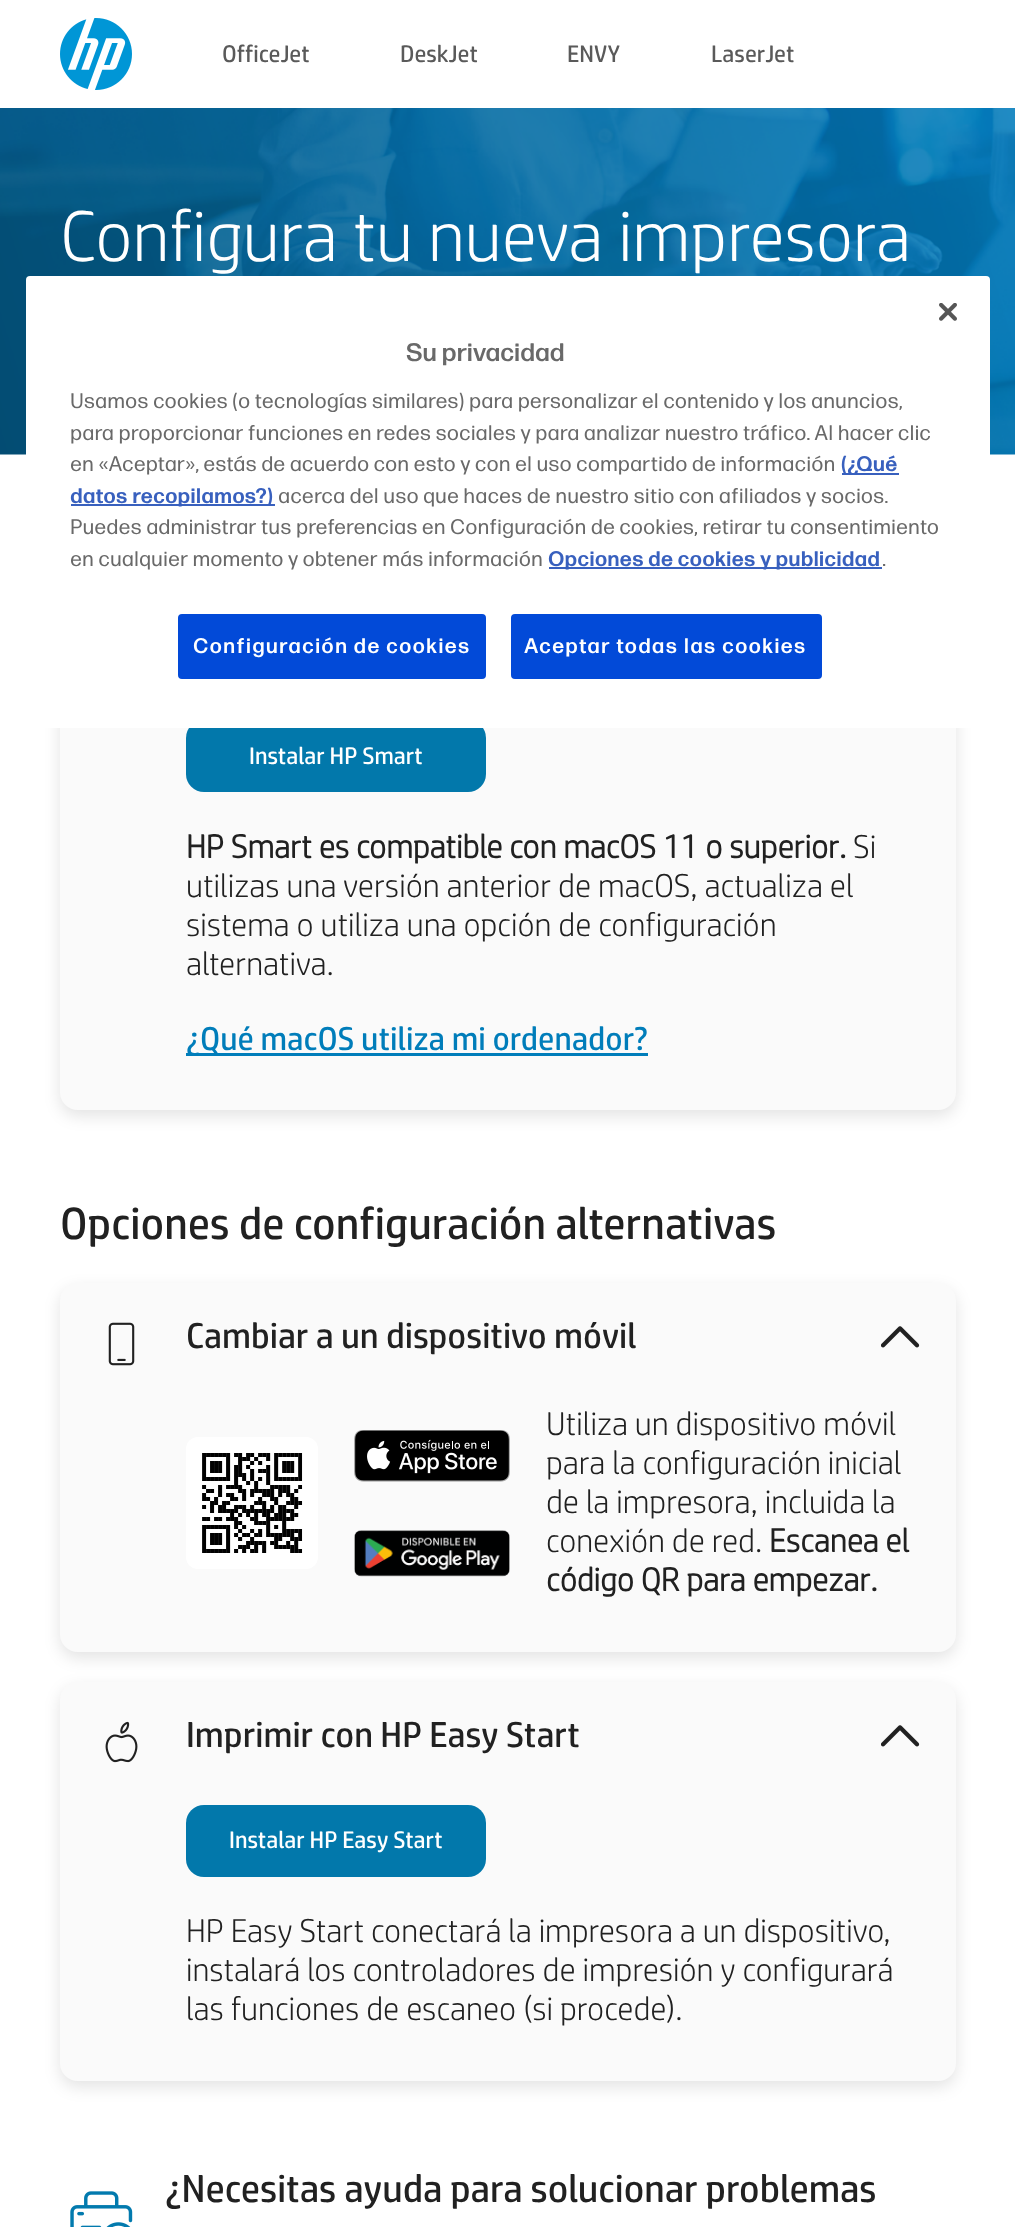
<svg xmlns="http://www.w3.org/2000/svg" width="1015" height="2227" viewBox="0 0 1015 2227">
  <rect width="100%" height="100%" fill="#fff"/>
  <image x="60" y="18" width="72" height="72" href="img/1.png"/>
  <image x="0" y="108" width="1015" height="347" href="img/2.png"/>
  <rect x="60" y="603" width="896" height="513" rx="18" fill="#0000001c" filter="blur(8px)"/>
  <rect x="60" y="597" width="896" height="513" rx="18" fill="#fafafa"/>
  <rect x="186" y="720" width="300" height="72" rx="18" fill="#0278ab"/>
  <path d="M186 1053h462v3H186z" fill="#007dba"/>
  <rect x="60" y="1289" width="896" height="369" rx="18" fill="#0000001c" filter="blur(8px)"/>
  <rect x="60" y="1283" width="896" height="369" rx="18" fill="#fafafa"/>
  <image x="108" y="1322" width="27" height="44" href="img/3.png"/>
  <image x="881" y="1326" width="39" height="22" href="img/4.png"/>
  <rect x="186" y="1437" width="132" height="132" rx="12" fill="#fff"/>
  <image x="202" y="1453" width="101" height="100" href="img/5.png"/>
  <image x="354" y="1430" width="156" height="52" href="img/6.png"/>
  <image x="354" y="1530" width="156" height="47" href="img/7.png"/>
  <rect x="60" y="1688" width="896" height="399" rx="18" fill="#0000001c" filter="blur(8px)"/>
  <rect x="60" y="1682" width="896" height="399" rx="18" fill="#fafafa"/>
  <image x="105" y="1721" width="33" height="42" href="img/8.png"/>
  <image x="881" y="1725" width="39" height="22" href="img/4.png"/>
  <rect x="186" y="1805" width="300" height="72" rx="18" fill="#0278ab"/>
  <image x="70" y="2191" width="63" height="36" href="img/9.png"/>
  <rect x="26" y="276" width="964" height="452" rx="4" fill="#fff"/>
  <image x="939" y="303" width="18" height="18" href="img/10.png"/>
  <path d="M842 473h57v2H842z" fill="#3860be"/>
  <path d="M71 504h204v2H71z" fill="#3860be"/>
  <path d="M549 567h333v2H549z" fill="#3860be"/>
  <rect x="177" y="613" width="310" height="67" rx="5" fill="#024ad8" stroke="#fff" stroke-width="2"/>
  <rect x="510" y="613" width="313" height="67" rx="5" fill="#024ad8" stroke="#fff" stroke-width="2"/>
  <g font-family="'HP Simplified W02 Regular'" font-size="24" fill="#5a5a5a">
    <text x="222" y="62">OfficeJet</text>
    <text x="400" y="62">DeskJet</text>
    <text x="567" y="62">ENVY</text>
    <text x="711" y="62">LaserJet</text>
  </g>
  <text x="60" y="261" font-family="'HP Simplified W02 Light'" font-size="72" font-weight="300" fill="#fff">Configura tu nueva impresora</text>
  <text x="249" y="764" font-family="'HP Simplified W02 Regular'" font-size="24" fill="#fff">Instalar HP Smart</text>
  <text x="186" y="858" font-family="'HP Simplified W02 Light'" font-size="33" font-weight="bold" fill="#212121">HP Smart es compatible con macOS 11 o superior.</text>
  <g font-family="'HP Simplified W02 Light'" font-size="33" font-weight="300" fill="#212121">
    <text x="853" y="858">Si</text>
    <text x="186" y="897">utilizas una versión anterior de macOS, actualiza el</text>
    <text x="186" y="936">sistema o utiliza una opción de configuración</text>
    <text x="186" y="975">alternativa.</text>
  </g>
  <text x="186" y="1050" font-family="'HP Simplified W02 Regular'" font-size="33" fill="#007dba">¿Qué macOS utiliza mi ordenador?</text>
  <text x="60" y="1239" font-family="'HP Simplified W02 Regular'" font-size="45" fill="#212121">Opciones de configuración alternativas</text>
  <text x="186" y="1348" font-family="'HP Simplified W02 Regular'" font-size="36" fill="#212121">Cambiar a un dispositivo móvil</text>
  <g font-family="'HP Simplified W02 Light'" font-size="33" font-weight="300" fill="#212121">
    <text x="546" y="1435">Utiliza un dispositivo móvil</text>
    <text x="546" y="1474">para la configuración inicial</text>
    <text x="546" y="1513">de la impresora, incluida la</text>
    <text x="546" y="1552">conexión de red.</text>
  </g>
  <g font-family="'HP Simplified W02 Light'" font-size="33" font-weight="bold" fill="#212121">
    <text x="769" y="1552">Escanea el</text>
    <text x="546" y="1591">código QR para empezar.</text>
  </g>
  <text x="186" y="1747" font-family="'HP Simplified W02 Regular'" font-size="36" fill="#212121">Imprimir con HP Easy Start</text>
  <text x="229" y="1848" font-family="'HP Simplified W02 Regular'" font-size="24" fill="#fff">Instalar HP Easy Start</text>
  <g font-family="'HP Simplified W02 Light'" font-size="33" font-weight="300" fill="#212121">
    <text x="186" y="1942">HP Easy Start conectará la impresora a un dispositivo,</text>
    <text x="186" y="1981">instalará los controladores de impresión y configurará</text>
    <text x="186" y="2020">las funciones de escaneo (si procede).</text>
  </g>
  <text x="165" y="2202" font-family="'HP Simplified W02 Regular'" font-size="39" fill="#212121">¿Necesitas ayuda para solucionar problemas</text>
  <text x="406" y="361" font-family="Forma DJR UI" font-size="25.25" font-weight="600" fill="#696969">Su privacidad</text>
  <g font-family="Forma DJR UI" font-size="21" fill="#696969">
    <text x="70" y="408">Usamos cookies (o tecnologías similares) para personalizar el contenido y los anuncios,</text>
    <text x="70" y="440">para proporcionar funciones en redes sociales y para analizar nuestro tráfico. Al hacer clic</text>
    <text x="70" y="471">en «Aceptar», estás de acuerdo con esto y con el uso compartido de información</text>
  </g>
  <g font-family="Forma DJR UI" font-size="21" font-weight="bold" fill="#3860be">
    <text x="841" y="471">(¿Qué</text>
    <text x="70" y="503">datos recopilamos?)</text>
  </g>
  <g font-family="Forma DJR UI" font-size="21" fill="#696969">
    <text x="278" y="503">acerca del uso que haces de nuestro sitio con afiliados y socios.</text>
    <text x="70" y="534">Puedes administrar tus preferencias en Configuración de cookies, retirar tu consentimiento</text>
    <text x="70" y="566">en cualquier momento y obtener más información</text>
  </g>
  <text x="548" y="566" font-family="Forma DJR UI" font-size="21" font-weight="bold" fill="#3860be">Opciones de cookies y publicidad</text>
  <text x="882" y="566" font-family="Forma DJR UI" font-size="21" fill="#696969">.</text>
  <g font-family="'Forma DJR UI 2'" font-size="21" font-weight="600" letter-spacing="1.05" fill="#fff">
    <text x="193" y="653">Configuración de cookies</text>
    <text x="524" y="653">Aceptar todas las cookies</text>
  </g>
</svg>
